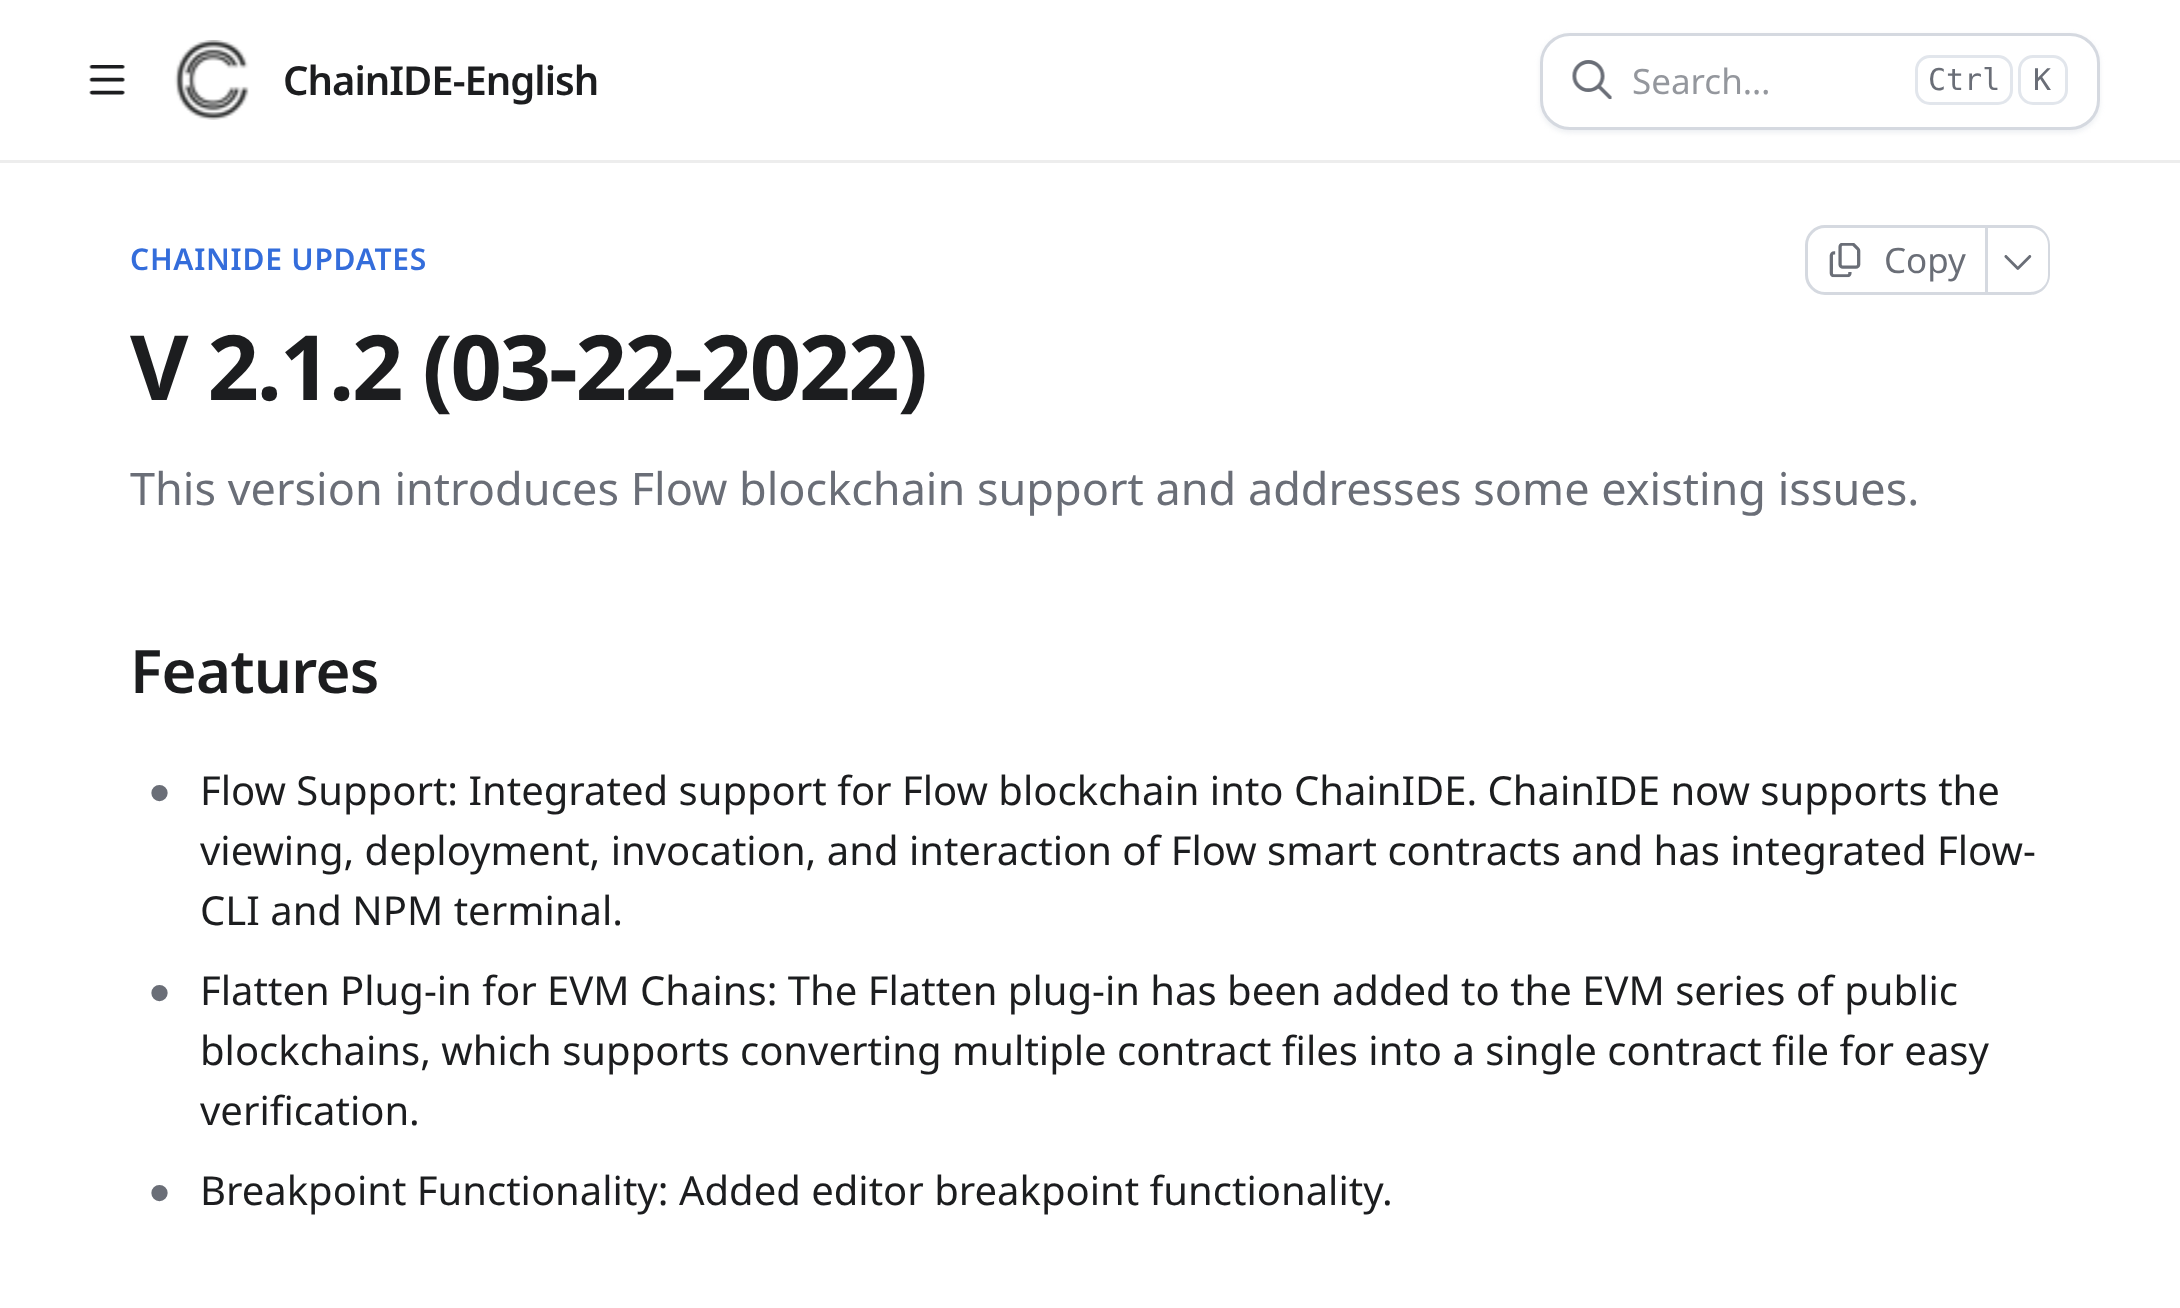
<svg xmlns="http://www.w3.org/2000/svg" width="2180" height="1308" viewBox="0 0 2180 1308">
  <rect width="100%" height="100%" fill="#fff"/>
  <path d="M0 160h2180v3H0z" fill="#ededed"/>
  <image x="89" y="65" width="36" height="30" href="img/1.png"/>
  <image x="174" y="40" width="75" height="80" href="img/2.png"/>
  <rect x="1540" y="35" width="560" height="98" rx="30" fill="#d5d9e066" filter="blur(2.5px)"/>
  <rect x="1541.5" y="34.5" width="557" height="94" rx="28.5" fill="#fff" stroke="#d5d9e0" stroke-width="3"/>
  <image x="1572" y="60" width="40" height="40" href="img/3.png"/>
  <rect x="1916.5" y="56.5" width="95" height="47" rx="13.5" fill="none" stroke="#e2e6ec" stroke-width="3"/>
  <rect x="2019.5" y="56.5" width="47" height="47" rx="13.5" fill="none" stroke="#e2e6ec" stroke-width="3"/>
  <path d="M1825 226.5H1986.5V293.5H1825C1815 293.5 1806.5 285 1806.5 275V245C1806.5 235 1815 226.5 1825 226.5Z" fill="none" stroke="#d5d9e0" stroke-width="3"/>
  <image x="1829" y="243" width="32" height="35" href="img/4.png"/>
  <path d="M1988 225H2030C2041 225 2050 234 2050 245V275C2050 286 2041 295 2030 295H1988ZM1988 228H2030C2040 228 2048 235 2048 245V275C2048 285 2040 292 2030 292H1988Z" fill="#d5d9e0" fill-rule="evenodd"/>
  <image x="2004" y="255" width="28" height="15" href="img/5.png"/>
  <text x="283" y="95" font-family="Noto Sans" font-size="40" font-weight="600" letter-spacing="-1" fill="#1c1d1f">ChainIDE-English</text>
  <text x="1632" y="94" font-family="Noto Sans" font-size="35" fill="#94979d">Search…</text>
  <g font-family="DejaVu Sans Mono" font-size="30" fill="#6a6e77">
    <text x="1928" y="90">Ctrl</text>
    <text x="2033" y="90">K</text>
  </g>
  <text x="130" y="270" font-family="Noto Sans" font-size="30" font-weight="600" letter-spacing="0.75" fill="#346ddb">CHAINIDE UPDATES</text>
  <text x="1884" y="273" font-family="Noto Sans" font-size="35" fill="#6a6e77">Copy</text>
  <text x="130" y="400" font-family="Noto Sans" font-size="90" font-weight="bold" letter-spacing="-2.25" fill="#1c1d1f">V 2.1.2 (03-22-2022)</text>
  <text x="130" y="505" font-family="Noto Sans" font-size="45" fill="#6a6e77">This version introduces Flow blockchain support and addresses some existing issues.</text>
  <text x="130" y="693" font-family="Noto Sans" font-size="60" font-weight="600" letter-spacing="-0.75" fill="#1c1d1f">Features</text>
  <text x="149" y="813" font-family="Liberation Sans" font-size="60" fill="#6a6e77">•</text>
  <g font-family="Noto Sans" font-size="40" fill="#1c1d1f">
    <text x="200" y="805">Flow Support: Integrated support for Flow blockchain into ChainIDE. ChainIDE now supports the</text>
    <text x="200" y="865">viewing, deployment, invocation, and interaction of Flow smart contracts and has integrated Flow-</text>
    <text x="200" y="925">CLI and NPM terminal.</text>
  </g>
  <text x="149" y="1013" font-family="Liberation Sans" font-size="60" fill="#6a6e77">•</text>
  <g font-family="Noto Sans" font-size="40" fill="#1c1d1f">
    <text x="200" y="1005">Flatten Plug-in for EVM Chains: The Flatten plug-in has been added to the EVM series of public</text>
    <text x="200" y="1065">blockchains, which supports converting multiple contract files into a single contract file for easy</text>
    <text x="200" y="1125">verification.</text>
  </g>
  <text x="149" y="1213" font-family="Liberation Sans" font-size="60" fill="#6a6e77">•</text>
  <text x="200" y="1205" font-family="Noto Sans" font-size="40" fill="#1c1d1f">Breakpoint Functionality: Added editor breakpoint functionality.</text>
</svg>
